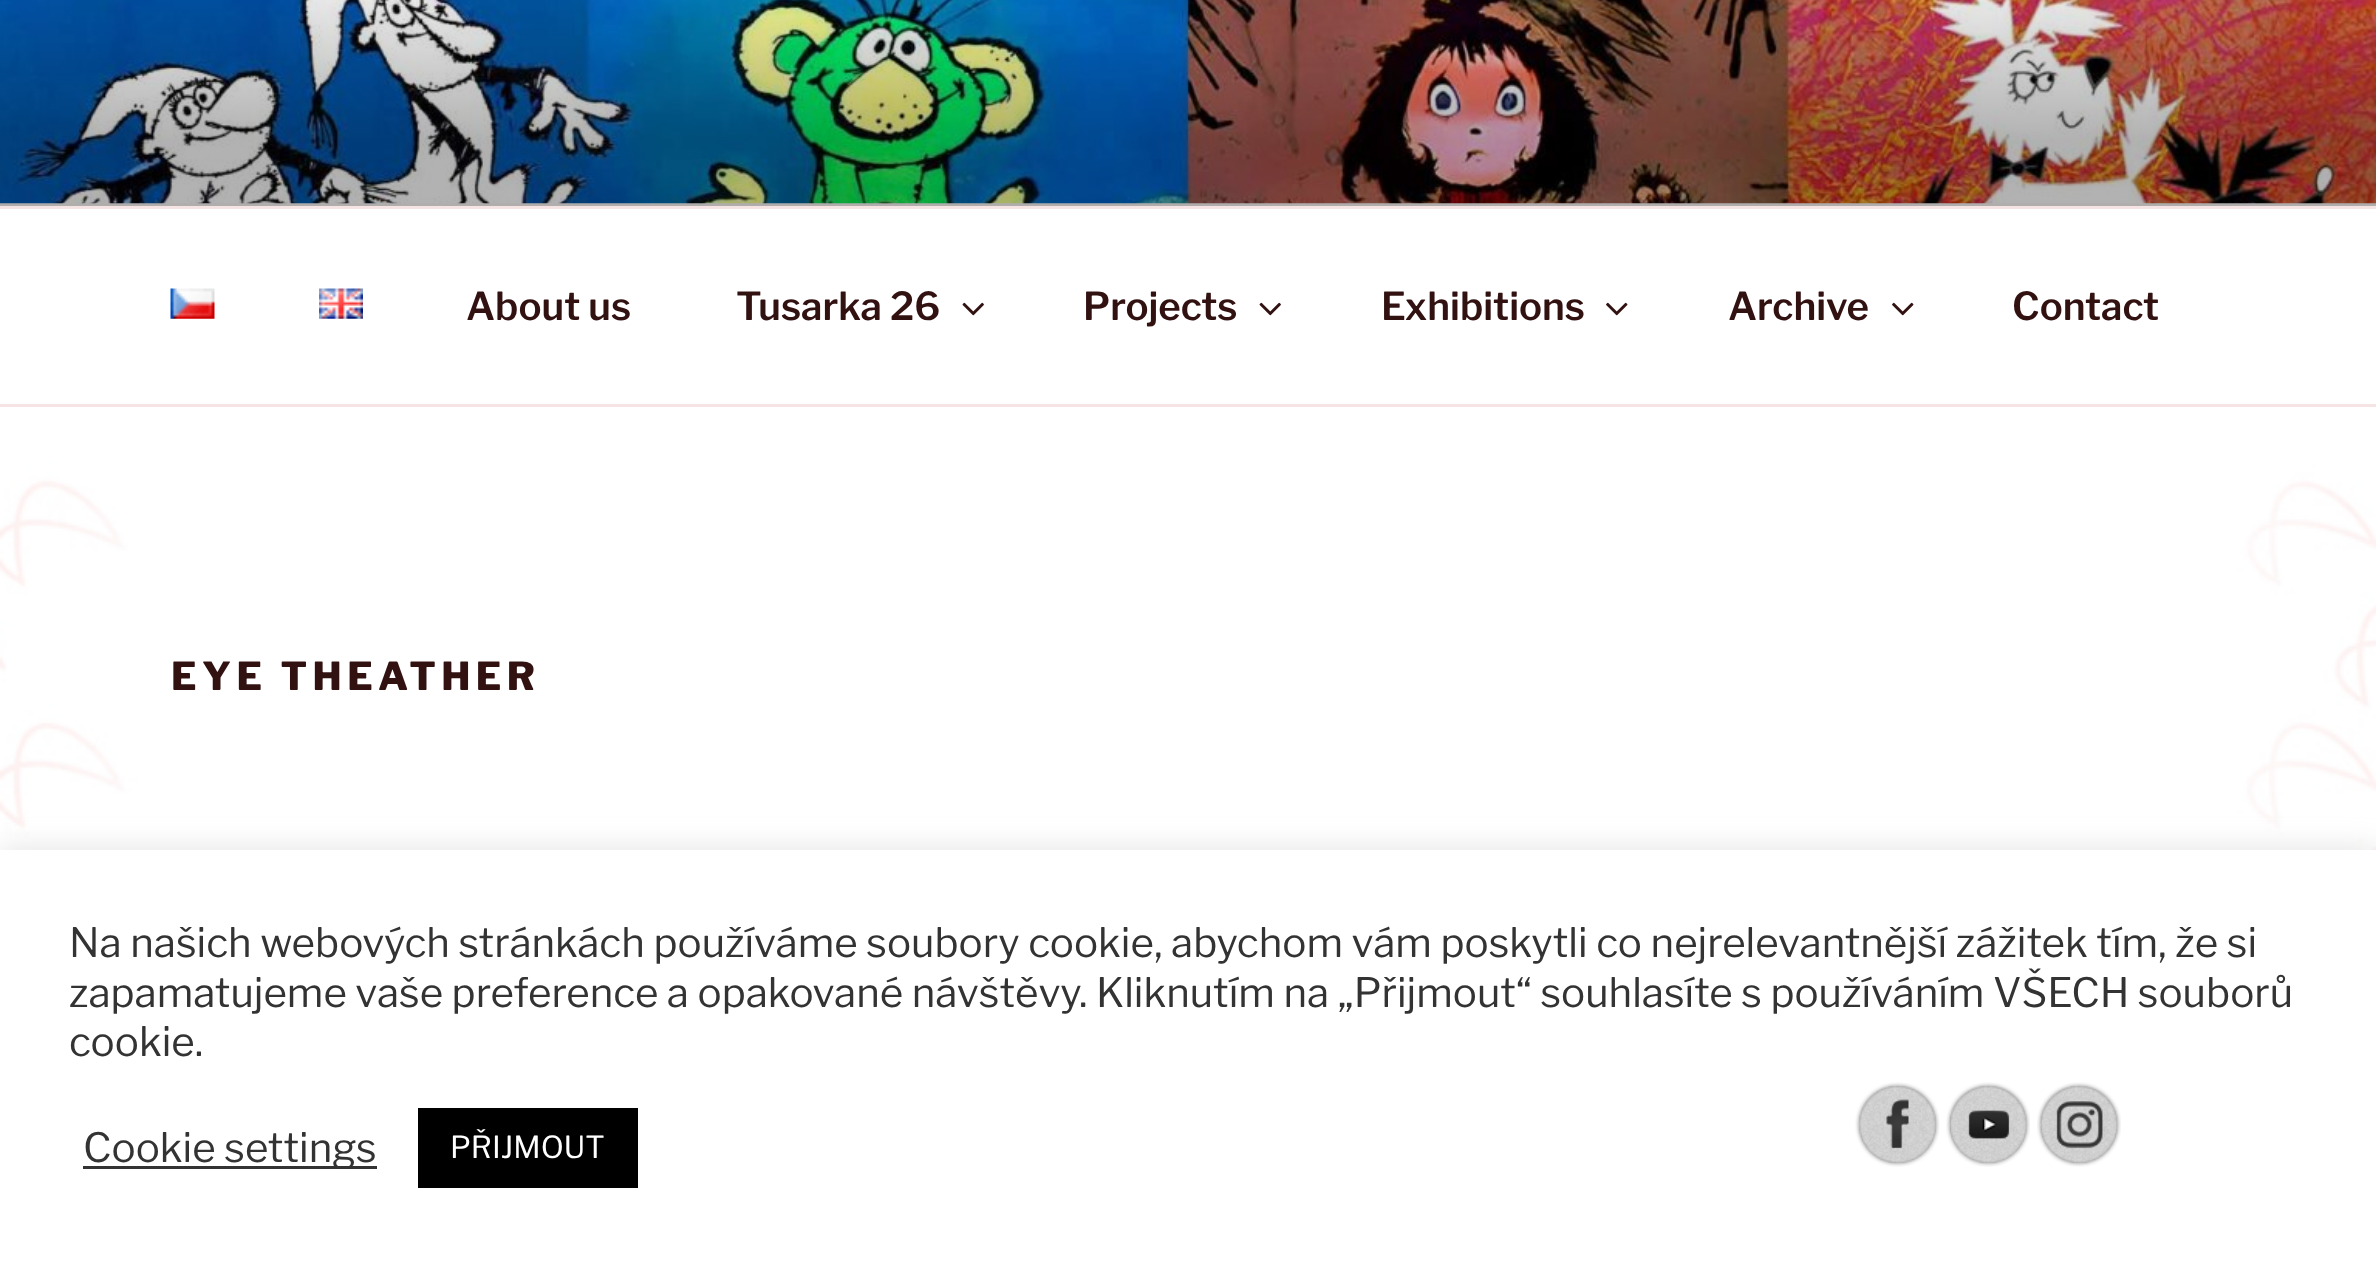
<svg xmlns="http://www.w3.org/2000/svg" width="2376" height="1268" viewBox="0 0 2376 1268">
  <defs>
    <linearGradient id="g1" gradientUnits="userSpaceOnUse" x1="1188" y1="-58" x2="1188" y2="206"><stop offset="0" stop-color="#000" stop-opacity="0"/><stop offset="0.75" stop-color="#000" stop-opacity="0.3"/><stop offset="1" stop-color="#000" stop-opacity="0.3"/></linearGradient>
  </defs>
  <rect width="100%" height="100%" fill="#fcf7f7"/>
  <image x="0" y="0" width="2376" height="204" href="img/1.png"/>
  <path d="M0 0h2376v206H0z" fill="url(#g1)"/>
  <path d="M0 209h2376v195H0z" fill="#fff"/>
  <path d="M0 206h2376v3H0z" fill="#f6e4e4"/>
  <path d="M0 404h2376v3H0z" fill="#f6e4e4"/>
  <image x="170" y="288" width="45" height="31" href="img/2.png"/>
  <image x="319" y="288" width="44" height="31" href="img/3.png"/>
  <image x="962" y="302" width="22" height="14" href="img/4.png"/>
  <image x="1259" y="302" width="22" height="14" href="img/4.png"/>
  <image x="1606" y="302" width="22" height="14" href="img/5.png"/>
  <image x="1892" y="302" width="22" height="14" href="img/5.png"/>
  <image x="0" y="407" width="2376" height="443" href="img/6.png"/>
  <path d="M0 847h2376v421H0z" fill="#acabab4d" filter="blur(14px)"/>
  <path d="M0 850h2376v418H0z" fill="#fff"/>
  <path d="M83 1166h294v3H83z" fill="#333"/>
  <path d="M418 1108h220v80H418z" fill="#000"/>
  <image x="1855" y="1082" width="85" height="85" href="img/7.png"/>
  <image x="1946" y="1082" width="84" height="85" href="img/8.png"/>
  <image x="2037" y="1082" width="84" height="85" href="img/9.png"/>
  <g font-family="'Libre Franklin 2'" font-size="38.5" font-weight="100" fill="#321111">
    <text x="466" y="320">About us</text>
    <text x="736" y="320">Tusarka 26</text>
    <text x="1083" y="320">Projects</text>
    <text x="1381" y="320">Exhibitions</text>
    <text x="1728" y="320">Archive</text>
    <text x="2012" y="320">Contact</text>
  </g>
  <text x="171" y="690" font-family="Libre Franklin" font-size="38.5" font-weight="100" letter-spacing="5.4" fill="#321111">EYE THEATHER</text>
  <g font-family="'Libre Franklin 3'" font-size="40.33" font-weight="100" fill="#333">
    <text x="69" y="957">Na našich webových stránkách používáme soubory cookie, abychom vám poskytli co nejrelevantnější zážitek tím, že si</text>
    <text x="69" y="1007" word-spacing="-0.1">zapamatujeme vaše preference a opakované návštěvy. Kliknutím na „Přijmout“ souhlasíte s používáním VŠECH souborů</text>
    <text x="69" y="1056">cookie.</text>
    <text x="83" y="1162">Cookie settings</text>
  </g>
  <text x="450" y="1158" font-family="'Libre Franklin 3'" font-size="30.25" font-weight="100" fill="#fff">PŘIJMOUT</text>
</svg>
